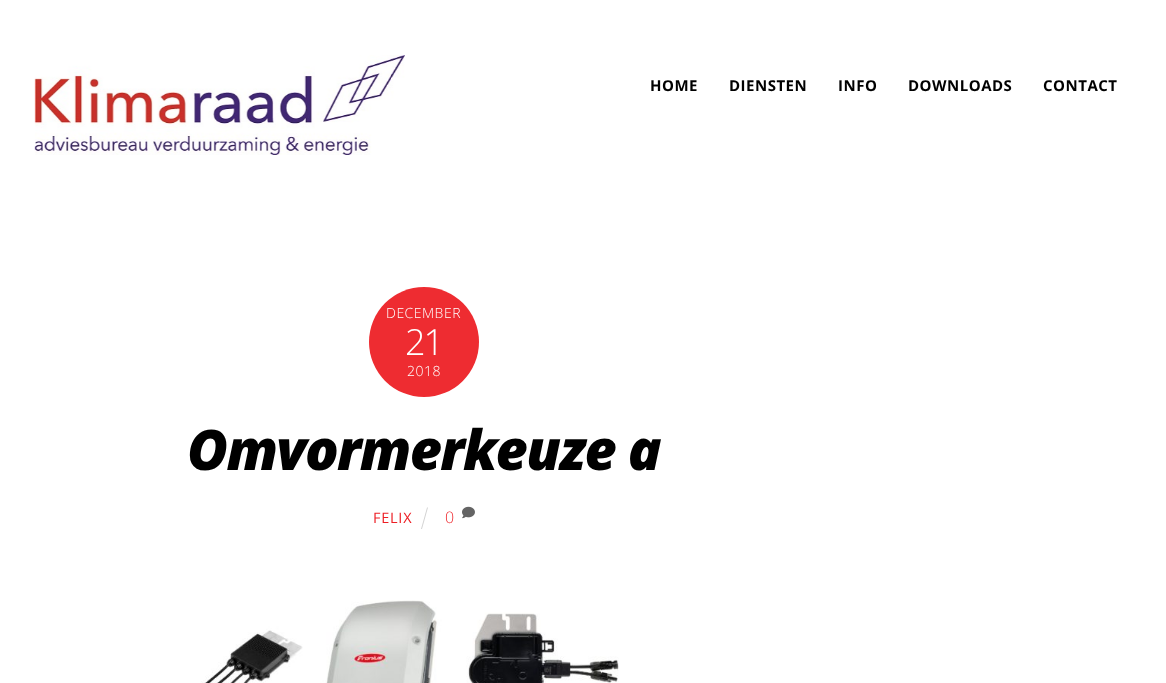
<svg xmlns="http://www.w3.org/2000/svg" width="1166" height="683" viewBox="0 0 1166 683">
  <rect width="100%" height="100%" fill="#fff"/>
  <image x="34" y="55" width="371" height="100" href="img/1.png"/>
  <circle cx="424" cy="342" r="55" fill="#ee2c31"/>
  <path d="M427 507.5H428L422 529H421Z" fill="#d3d3d3"/>
  <image x="462" y="506" width="13" height="13" href="img/2.png"/>
  <image x="201" y="600" width="418" height="83" href="img/3.png"/>
  <g font-family="Open Sans" font-size="15" font-weight="bold" letter-spacing="0.5" fill="#000">
    <text x="650" y="91">HOME</text>
    <text x="729" y="91">DIENSTEN</text>
    <text x="838" y="91">INFO</text>
    <text x="908" y="91">DOWNLOADS</text>
    <text x="1043" y="91">CONTACT</text>
  </g>
  <text x="386" y="318" font-family="Open Sans" font-size="14" font-weight="300" letter-spacing="0.5" fill="#fff">DECEMBER</text>
  <text x="405" y="355" font-family="Open Sans" font-size="36" font-weight="300" letter-spacing="-2" fill="#fff">21</text>
  <text x="407" y="376" font-family="Open Sans" font-size="14" font-weight="300" letter-spacing="0.5" fill="#fff">2018</text>
  <text x="187" y="470" font-family="Open Sans" font-size="55.75" font-weight="800" font-style="italic" letter-spacing="-1.7" fill="#000">Omvormerkeuze a</text>
  <text x="373" y="523" font-family="Open Sans" font-size="14.5" letter-spacing="0.75" fill="#ed1e24">FELIX</text>
  <text x="445" y="523" font-family="Open Sans" font-size="16" font-weight="300" fill="#ed1e24">0</text>
</svg>
